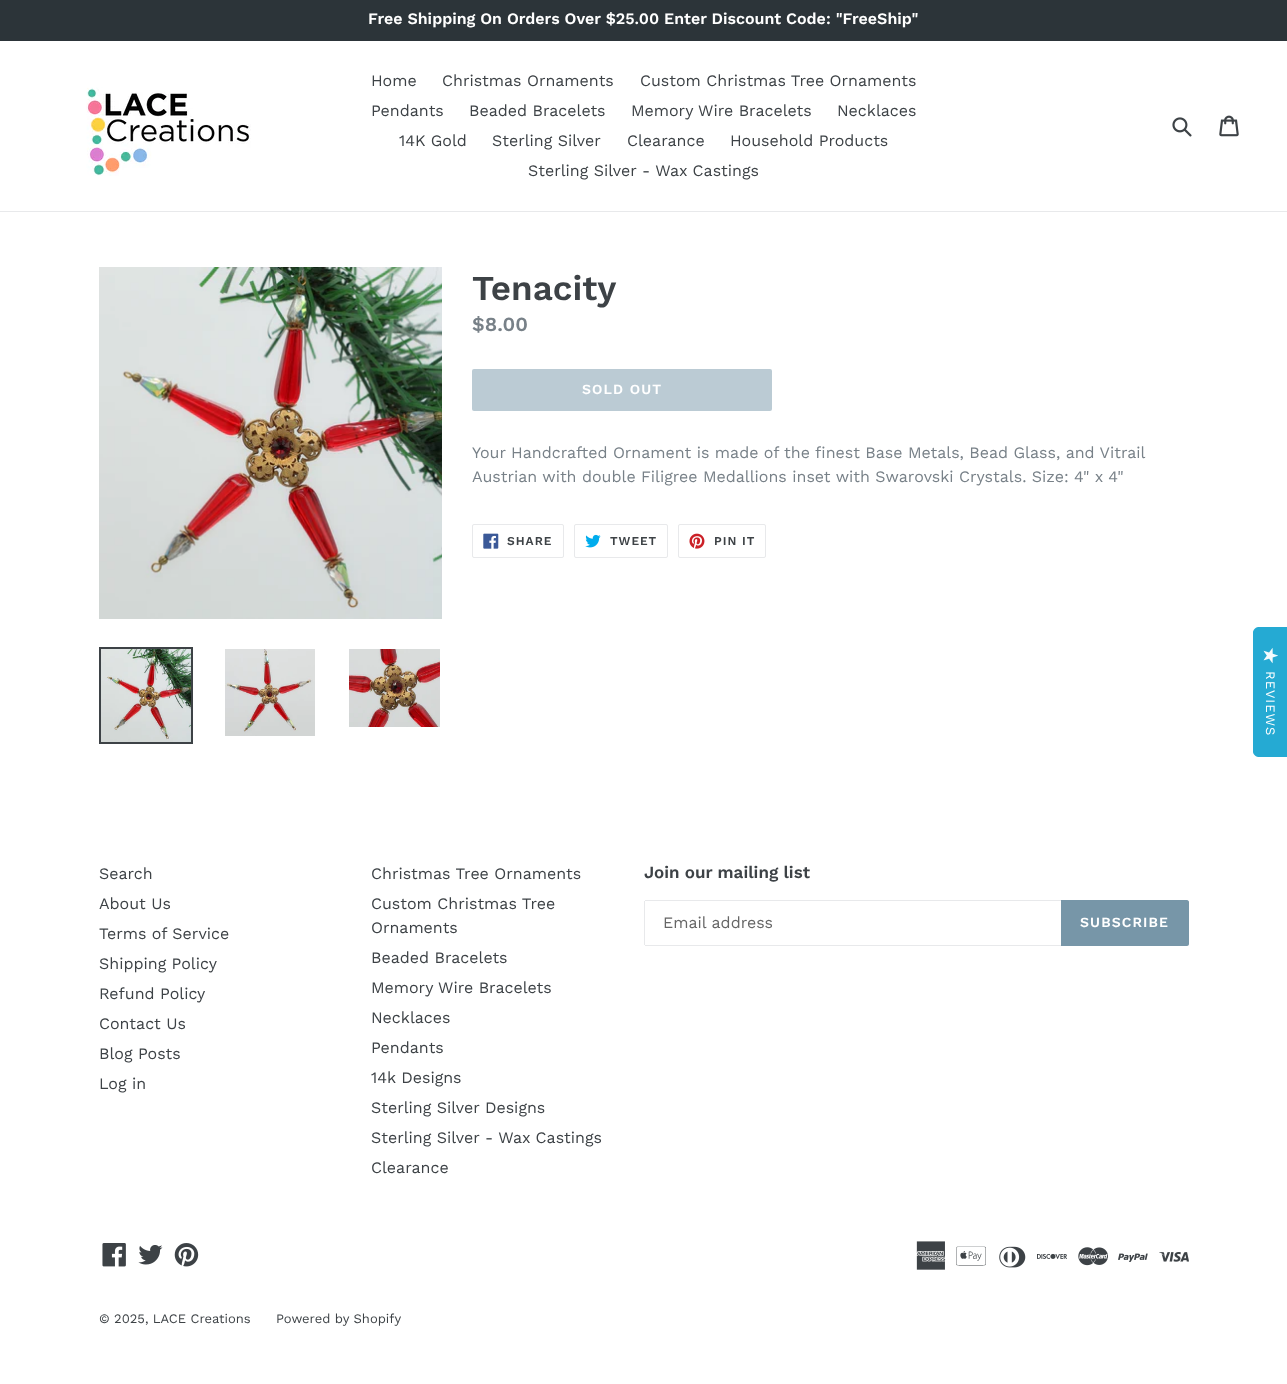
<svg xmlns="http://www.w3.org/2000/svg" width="1287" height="1384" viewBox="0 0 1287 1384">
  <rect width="100%" height="100%" fill="#fff"/>
  <path d="M0 0h1287v41H0z" fill="#2c3439"/>
  <path d="M0 211h1287v1H0z" fill="#e8e9eb"/>
  <image x="86" y="87" width="165" height="89" href="img/1.png"/>
  <image x="1172" y="117" width="20" height="20" href="img/2.png"/>
  <image x="1219" y="115" width="20" height="22" href="img/3.png"/>
  <image x="99" y="267" width="343" height="352" href="img/4.png"/>
  <path d="M100 648h92v95H100z" fill="none" stroke="#3d4246" stroke-width="2"/>
  <image x="101" y="649" width="90" height="93" href="img/5.png"/>
  <image x="225" y="649" width="90" height="87" href="img/6.png"/>
  <image x="349" y="649" width="91" height="78" href="img/7.png"/>
  <rect x="472" y="369" width="300" height="42" rx="2" fill="#bbcbd4"/>
  <rect x="472.5" y="524.5" width="91" height="33" rx="1.5" fill="none" stroke="#e8e9eb"/>
  <image x="483" y="533" width="16" height="16" href="img/8.png"/>
  <rect x="574.5" y="524.5" width="93" height="33" rx="1.5" fill="none" stroke="#e8e9eb"/>
  <image x="585" y="534" width="16" height="14" href="img/9.png"/>
  <rect x="678.5" y="524.5" width="87" height="33" rx="1.5" fill="none" stroke="#e8e9eb"/>
  <image x="689" y="533" width="16" height="16" href="img/10.png"/>
  <path d="M645 900h416v1H645z" fill="#e8e9eb"/>
  <path d="M645 945h416v1H645z" fill="#e8e9eb"/>
  <path d="M644 901h1v44H644z" fill="#e8e9eb"/>
  <path d="M1061 900H1187C1188 900 1189 901 1189 902V944C1189 945 1188 946 1187 946H1061Z" fill="#7796a8"/>
  <image x="102" y="1243" width="24" height="24" href="img/11.png"/>
  <image x="138" y="1245" width="25" height="20" href="img/12.png"/>
  <image x="174" y="1243" width="25" height="24" href="img/13.png"/>
  <image x="916" y="1241" width="30" height="29" href="img/14.png"/>
  <image x="956" y="1246" width="30" height="20" href="img/15.png"/>
  <image x="999" y="1246" width="27" height="22" href="img/16.png"/>
  <image x="1037" y="1253" width="30" height="6" href="img/17.png"/>
  <image x="1078" y="1247" width="30" height="19" href="img/18.png"/>
  <image x="1118" y="1253" width="30" height="9" href="img/19.png"/>
  <image x="1159" y="1252" width="30" height="10" href="img/20.png"/>
  <path d="M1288 627V757H1258C1256 757 1253 754 1253 752V632C1253 630 1256 627 1258 627Z" fill="#25aad3"/>
  <image x="1263" y="648" width="15" height="16" href="img/21.png"/>
  <text x="368" y="24" font-family="Work Sans" font-size="16" font-weight="600" fill="#fff">Free Shipping On Orders Over $25.00 Enter Discount Code: "FreeShip"</text>
  <g font-family="Work Sans" font-size="16" fill="#3d4246">
    <text x="371" y="86">Home</text>
    <text x="442" y="86">Christmas Ornaments</text>
    <text x="640" y="86">Custom Christmas Tree Ornaments</text>
    <text x="371" y="116">Pendants</text>
    <text x="469" y="116">Beaded Bracelets</text>
    <text x="631" y="116">Memory Wire Bracelets</text>
    <text x="837" y="116">Necklaces</text>
    <text x="399" y="146">14K Gold</text>
    <text x="492" y="146">Sterling Silver</text>
    <text x="627" y="146">Clearance</text>
    <text x="730" y="146">Household Products</text>
    <text x="528" y="176">Sterling Silver - Wax Castings</text>
  </g>
  <text x="472" y="300" font-family="Work Sans" font-size="35" font-weight="600" fill="#3d4246">Tenacity</text>
  <text x="472" y="331" font-family="Work Sans" font-size="20" font-weight="600" fill="#788188">$8.00</text>
  <text x="582" y="394" font-family="Work Sans" font-size="14" font-weight="600" letter-spacing="1.1" fill="#fff">SOLD OUT</text>
  <g font-family="Work Sans" font-size="16" fill="#788188">
    <text x="472" y="458">Your Handcrafted Ornament is made of the finest Base Metals, Bead Glass, and Vitrail</text>
    <text x="472" y="482">Austrian with double Filigree Medallions inset with Swarovski Crystals. Size: 4" x 4"</text>
  </g>
  <g font-family="Work Sans" font-size="12" font-weight="600" letter-spacing="1" fill="#3d4246">
    <text x="507" y="545">SHARE</text>
    <text x="610" y="545">TWEET</text>
    <text x="714" y="545">PIN IT</text>
  </g>
  <g font-family="Work Sans" font-size="16" fill="#3d4246">
    <text x="99" y="879">Search</text>
    <text x="99" y="909">About Us</text>
    <text x="99" y="939">Terms of Service</text>
    <text x="99" y="969">Shipping Policy</text>
    <text x="99" y="999">Refund Policy</text>
    <text x="99" y="1029">Contact Us</text>
    <text x="99" y="1059">Blog Posts</text>
    <text x="99" y="1089">Log in</text>
    <text x="371" y="879">Christmas Tree Ornaments</text>
    <text x="371" y="909">Custom Christmas Tree</text>
    <text x="371" y="933">Ornaments</text>
    <text x="371" y="963">Beaded Bracelets</text>
    <text x="371" y="993">Memory Wire Bracelets</text>
    <text x="371" y="1023">Necklaces</text>
    <text x="371" y="1053">Pendants</text>
    <text x="371" y="1083">14k Designs</text>
    <text x="371" y="1113">Sterling Silver Designs</text>
    <text x="371" y="1143">Sterling Silver - Wax Castings</text>
    <text x="371" y="1173">Clearance</text>
  </g>
  <text x="644" y="878" font-family="Work Sans" font-size="17" font-weight="600" fill="#3d4246">Join our mailing list</text>
  <text x="663" y="928" font-family="Work Sans" font-size="16" fill="#666">Email address</text>
  <text x="1080" y="927" font-family="Work Sans" font-size="14" font-weight="600" letter-spacing="1.1" fill="#fff">SUBSCRIBE</text>
  <g font-family="Work Sans" font-size="13" fill="#3d4246">
    <text x="99" y="1323">© 2025, LACE Creations</text>
    <text x="276" y="1323">Powered by Shopify</text>
  </g>
  <text x="1266" y="671" transform="rotate(90 1266 671)" font-family="Work Sans" font-size="13" letter-spacing="1" fill="#fff">REVIEWS</text>
</svg>
